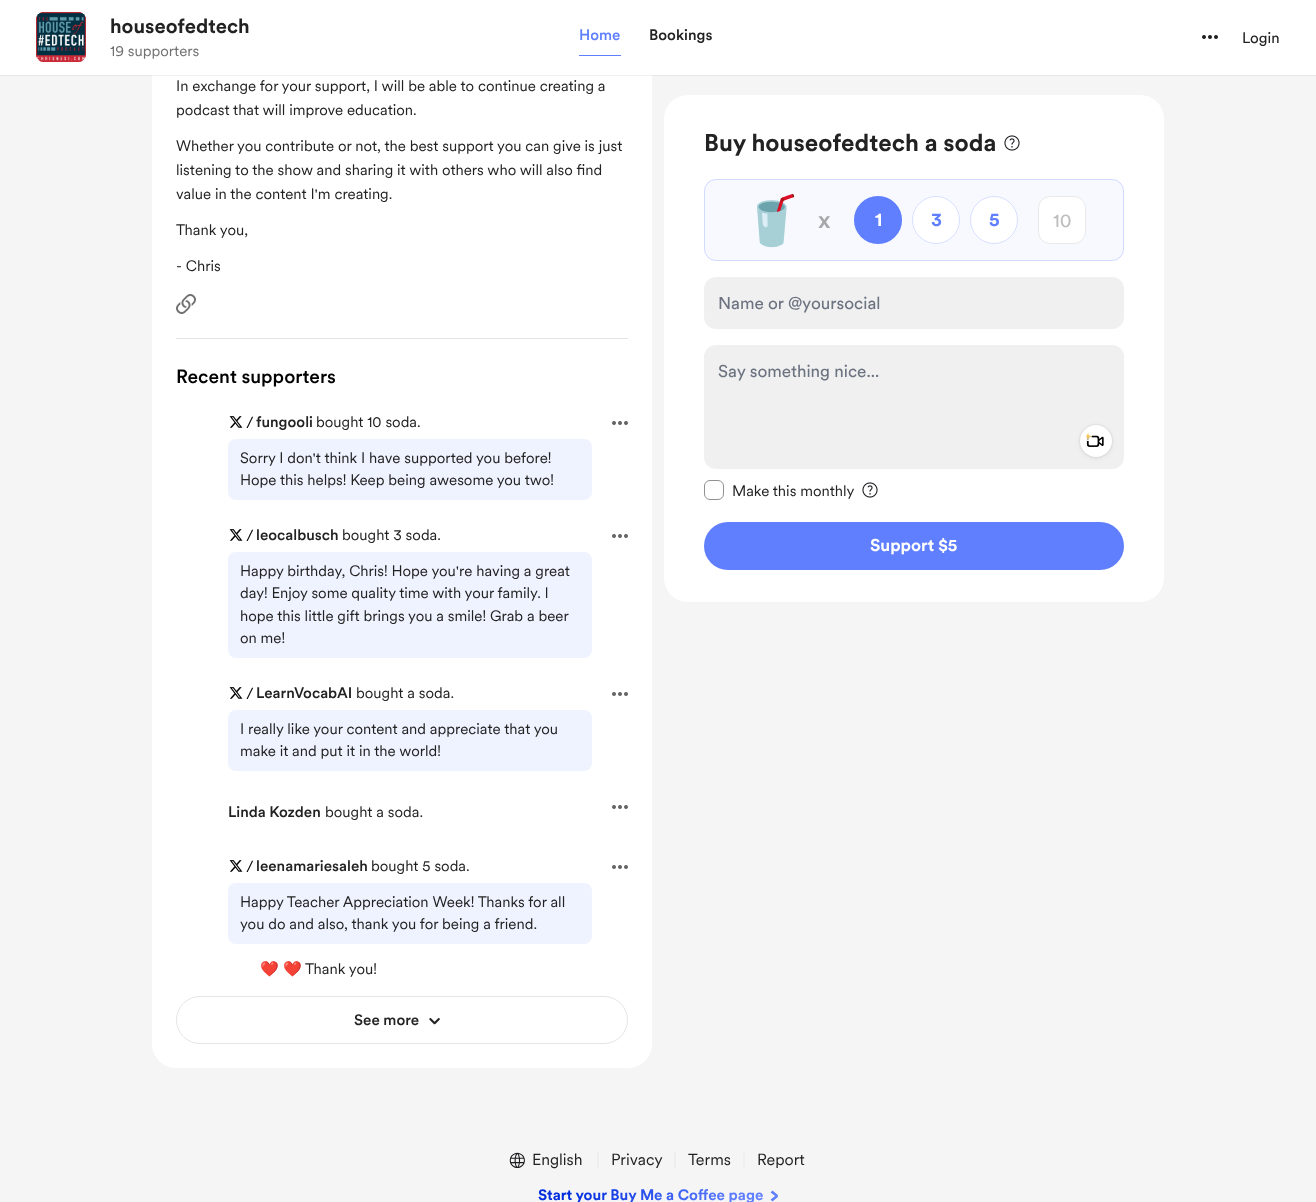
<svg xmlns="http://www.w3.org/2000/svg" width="1316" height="1202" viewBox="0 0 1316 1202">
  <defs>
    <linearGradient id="g1" gradientUnits="userSpaceOnUse" x1="553" y1="1150" x2="763" y2="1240"><stop offset="0.14" stop-color="#002cde"/><stop offset="0.82" stop-color="#5f7fff"/></linearGradient>
  </defs>
  <rect width="100%" height="100%" fill="#f5f5f5"/>
  <rect x="152" y="-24" width="500" height="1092" rx="24" fill="#fff"/>
  <path d="M0 1h1316v75H0z" fill="#0000000f" filter="blur(0.5px)"/>
  <path d="M0 0h1316v75H0z" fill="#fff"/>
  <image x="36" y="12" width="50" height="50" href="img/1.png"/>
  <image x="36" y="12" width="50" height="50" href="img/2.png"/>
  <path d="M579 55h42v1H579z" fill="#5f7fff"/>
  <image x="1202" y="35" width="16" height="4" href="img/3.png"/>
  <path d="M176 338h452v1H176z" fill="#e4e4e4"/>
  <image x="176" y="294" width="20" height="20" href="img/4.png"/>
  <image x="229" y="416" width="14" height="12" href="img/5.png"/>
  <rect x="228" y="439" width="364" height="61" rx="8" fill="#eff2ff"/>
  <image x="612" y="421" width="16" height="4" href="img/6.png"/>
  <image x="229" y="529" width="14" height="12" href="img/5.png"/>
  <rect x="228" y="552" width="364" height="106" rx="8" fill="#eff2ff"/>
  <image x="612" y="534" width="16" height="4" href="img/6.png"/>
  <image x="229" y="687" width="14" height="12" href="img/5.png"/>
  <rect x="228" y="710" width="364" height="61" rx="8" fill="#eff2ff"/>
  <image x="612" y="692" width="16" height="4" href="img/6.png"/>
  <image x="612" y="805" width="16" height="4" href="img/6.png"/>
  <image x="229" y="860" width="14" height="12" href="img/5.png"/>
  <rect x="228" y="883" width="364" height="61" rx="8" fill="#eff2ff"/>
  <image x="612" y="865" width="16" height="4" href="img/6.png"/>
  <rect x="176.5" y="996.5" width="451" height="47" rx="23.5" fill="none" stroke="#e5e5e5"/>
  <image x="429" y="1018" width="11" height="7" href="img/7.png"/>
  <rect x="664" y="95" width="500" height="507" rx="24" fill="#fff"/>
  <image x="1004" y="135" width="16" height="16" href="img/8.png"/>
  <rect x="704" y="179" width="420" height="82" rx="12" fill="#f7f9ff"/>
  <rect x="704.5" y="179.5" width="419" height="81" rx="11.5" fill="none" stroke="#5f7fff40"/>
  <circle cx="878" cy="220" r="24" fill="#5f7fff"/>
  <circle cx="878" cy="220" r="23.5" fill="none" stroke="#5f7fff40"/>
  <circle cx="936" cy="220" r="24" fill="#fff"/>
  <circle cx="936" cy="220" r="23.5" fill="none" stroke="#5f7fff40"/>
  <circle cx="994" cy="220" r="24" fill="#fff"/>
  <circle cx="994" cy="220" r="23.5" fill="none" stroke="#5f7fff40"/>
  <rect x="1038" y="196" width="48" height="48" rx="12" fill="#fff"/>
  <rect x="1038.5" y="196.5" width="47" height="47" rx="11.5" fill="none" stroke="#2222221a"/>
  <rect x="704" y="277" width="420" height="52" rx="12" fill="#f0f0f0"/>
  <rect x="704" y="345" width="420" height="124" rx="12" fill="#f0f0f0"/>
  <rect x="1080" y="427" width="32" height="32" rx="16" fill="#0000000d" filter="blur(2.5px)"/>
  <rect x="1080" y="425" width="32" height="32" rx="16" fill="#00000026" filter="blur(1px)"/>
  <circle cx="1096" cy="441" r="16" fill="#fff"/>
  <image x="1086" y="435" width="18" height="12" href="img/10.png"/>
  <image x="1086" y="433" width="6" height="8" href="img/9.png"/>
  <rect x="704.5" y="480.5" width="19" height="19" rx="5.5" fill="none" stroke="#919191"/>
  <image x="862" y="482" width="16" height="16" href="img/8.png"/>
  <rect x="704" y="522" width="420" height="48" rx="24" fill="#5f7fff"/>
  <image x="509" y="1152" width="16" height="16" href="img/11.png"/>
  <path d="M598 1152V1168" fill="none" stroke="#e7e7e7"/>
  <path d="M675 1152V1168" fill="none" stroke="#e7e7e7"/>
  <path d="M744 1152V1168" fill="none" stroke="#e7e7e7"/>
  <path d="M771.5 1191.5C778.5 1197.5 778.5 1194.5 771.5 1200.5" fill="none" stroke="#5f7fff" stroke-width="2.7"/>
  <text x="110" y="33" font-family="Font" font-size="20" font-weight="bold" fill="#222">houseofedtech</text>
  <text x="110" y="56" font-family="Font" font-size="15" fill="#717171">19 supporters</text>
  <text x="579" y="40" font-family="Font" font-size="15" font-weight="500" fill="#5f7fff">Home</text>
  <text x="649" y="40" font-family="Font" font-size="15" font-weight="500" fill="#222">Bookings</text>
  <text x="1242" y="43" font-family="'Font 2'" font-size="15" fill="#222">Login</text>
  <g font-family="Font" font-size="15" fill="#222">
    <text x="176" y="91">In exchange for your support, I will be able to continue creating a</text>
    <text x="176" y="115">podcast that will improve education.</text>
    <text x="176" y="151">Whether you contribute or not, the best support you can give is just</text>
    <text x="176" y="175">listening to the show and sharing it with others who will also find</text>
    <text x="176" y="199">value in the content I'm creating.</text>
    <text x="176" y="235">Thank you,</text>
    <text x="176" y="271">- Chris</text>
  </g>
  <text x="176" y="383" font-family="Font" font-size="19" font-weight="500" fill="#000">Recent supporters</text>
  <text x="246" y="428" font-family="Font" font-size="16" fill="#000">/</text>
  <text x="256" y="427" font-family="Font" font-size="15" font-weight="500" fill="#222">fungooli</text>
  <g font-family="Font" font-size="15" fill="#222">
    <text x="316" y="427">bought 10 soda.</text>
    <text x="240" y="463">Sorry I don't think I have supported you before!</text>
    <text x="240" y="485">Hope this helps! Keep being awesome you two!</text>
  </g>
  <text x="246" y="541" font-family="Font" font-size="16" fill="#000">/</text>
  <text x="256" y="540" font-family="Font" font-size="15" font-weight="500" fill="#222">leocalbusch</text>
  <g font-family="Font" font-size="15" fill="#222">
    <text x="342" y="540">bought 3 soda.</text>
    <text x="240" y="576">Happy birthday, Chris! Hope you're having a great</text>
    <text x="240" y="598">day! Enjoy some quality time with your family. I</text>
    <text x="240" y="621">hope this little gift brings you a smile! Grab a beer</text>
    <text x="240" y="643">on me!</text>
  </g>
  <text x="246" y="699" font-family="Font" font-size="16" fill="#000">/</text>
  <text x="256" y="698" font-family="Font" font-size="15" font-weight="500" fill="#222">LearnVocabAI</text>
  <g font-family="Font" font-size="15" fill="#222">
    <text x="356" y="698">bought a soda.</text>
    <text x="240" y="734">I really like your content and appreciate that you</text>
    <text x="240" y="756">make it and put it in the world!</text>
  </g>
  <text x="228" y="817" font-family="Font" font-size="15" font-weight="500" fill="#222">Linda Kozden</text>
  <text x="325" y="817" font-family="Font" font-size="15" fill="#222">bought a soda.</text>
  <text x="246" y="872" font-family="Font" font-size="16" fill="#000">/</text>
  <text x="256" y="871" font-family="Font" font-size="15" font-weight="500" fill="#222">leenamariesaleh</text>
  <g font-family="Font" font-size="15" fill="#222">
    <text x="371" y="871">bought 5 soda.</text>
    <text x="240" y="907">Happy Teacher Appreciation Week! Thanks for all</text>
    <text x="240" y="929">you do and also, thank you for being a friend.</text>
  </g>
  <g font-family="Noto Color Emoji" font-size="15" fill="#222">
    <text x="260" y="974">❤️</text>
    <text x="283" y="974">❤️</text>
  </g>
  <text x="305" y="974" font-family="Font" font-size="15" fill="#222">Thank you!</text>
  <text x="354" y="1025" font-family="Font" font-size="15" font-weight="500" fill="#222">See more</text>
  <text x="704" y="151" font-family="Font" font-size="24" font-weight="bold" fill="#222">Buy houseofedtech a soda</text>
  <text x="742" y="237" font-family="Noto Color Emoji" font-size="48" fill="#000">🥤</text>
  <text x="818" y="228" font-family="Font" font-size="24" font-weight="500" fill="#a7a7aa">x</text>
  <text x="875" y="226" font-family="Font" font-size="19" font-weight="bold" fill="#fff">1</text>
  <g font-family="Font" font-size="19" font-weight="bold" fill="#5f7fff">
    <text x="931" y="226">3</text>
    <text x="989" y="226">5</text>
  </g>
  <text x="1053" y="227" font-family="'Font 2'" font-size="19" fill="#bdbdbd">10</text>
  <g font-family="'Font 2'" font-size="17" fill="#6b7280">
    <text x="718" y="309">Name or @yoursocial</text>
    <text x="718" y="377">Say something nice...</text>
  </g>
  <text x="732" y="496" font-family="Font" font-size="15" fill="#222">Make this monthly</text>
  <text x="870" y="551" font-family="Font" font-size="17" font-weight="bold" fill="#fff">Support $5</text>
  <g font-family="Font" font-size="16" fill="#222">
    <text x="532" y="1165">English</text>
    <text x="611" y="1165">Privacy</text>
    <text x="688" y="1165">Terms</text>
    <text x="757" y="1165">Report</text>
  </g>
  <text x="538" y="1200" font-family="Font" font-size="15" font-weight="bold" fill="url(#g1)">Start your Buy Me a Coffee page</text>
</svg>
